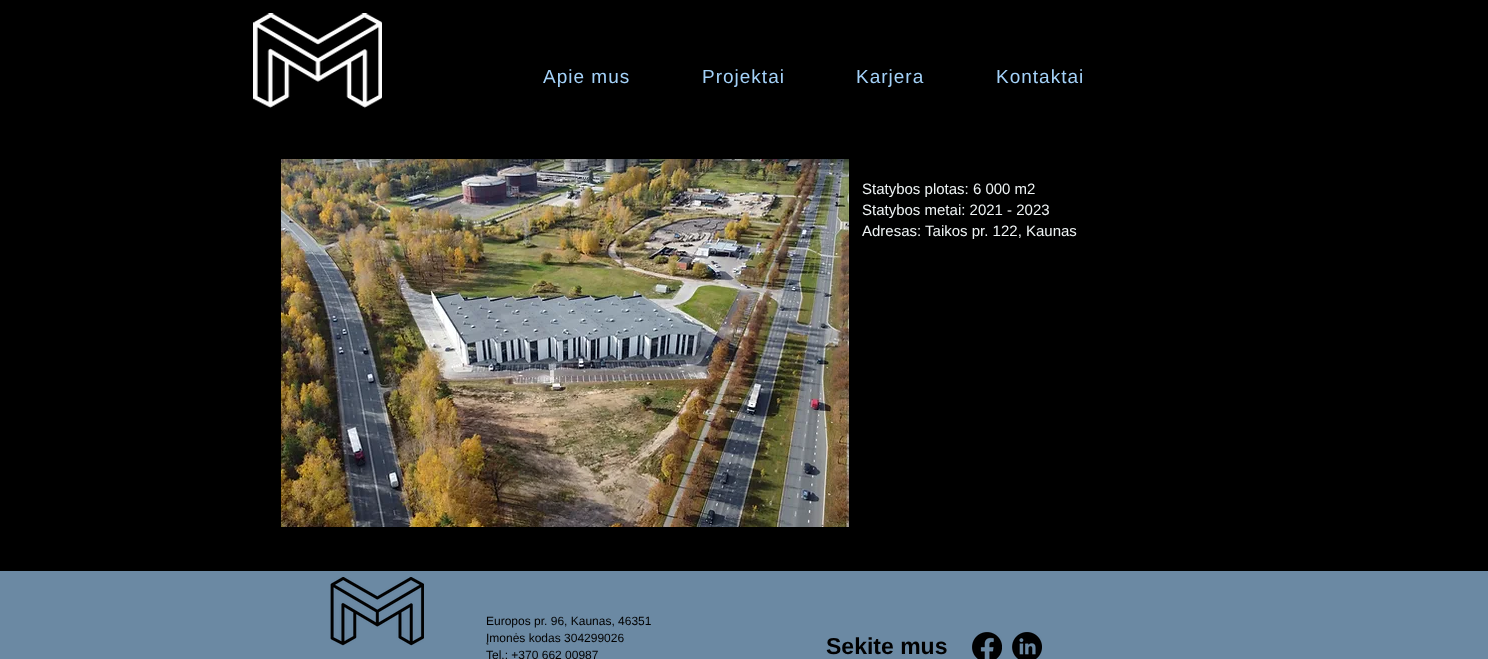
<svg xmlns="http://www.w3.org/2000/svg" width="1488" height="659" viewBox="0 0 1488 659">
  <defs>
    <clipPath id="clip1"><path d="M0 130h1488v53H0z"/></clipPath>
  </defs>
  <rect width="100%" height="100%" fill="#000"/>
  <image x="281" y="159" width="568" height="368" href="img/2.png"/>
  <g clip-path="url(#clip1)">
    <path d="M-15 0h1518v160H-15z" fill="#0000009c" filter="blur(12.5px)"/>
  </g>
  <image x="253" y="13" width="129" height="95" href="img/1.png"/>
  <path d="M0 571h1488v88H0z" fill="#6b89a3"/>
  <image x="330" y="577" width="94" height="69" href="img/3.png"/>
  <image x="972" y="632" width="30" height="27" href="img/4.png"/>
  <image x="1012" y="632" width="30" height="27" href="img/5.png"/>
  <g font-family="Liberation Sans" font-size="19" letter-spacing="1" fill="#a4d2f9">
    <text x="543" y="83">Apie mus</text>
    <text x="702" y="83">Projektai</text>
    <text x="856" y="83">Karjera</text>
    <text x="996" y="83">Kontaktai</text>
  </g>
  <g font-family="Liberation Sans" font-size="15" fill="#eff4f5">
    <text x="862" y="194">Statybos plotas: 6 000 m2</text>
    <text x="862" y="215">Statybos metai: 2021 - 2023</text>
    <text x="862" y="236">Adresas: Taikos pr. 122, Kaunas</text>
  </g>
  <g font-family="Liberation Sans" font-size="12" fill="#000">
    <text x="486" y="625">Europos pr. 96, Kaunas, 46351</text>
    <text x="486" y="642">Įmonės kodas 304299026</text>
    <text x="486" y="659">Tel.: +370 662 00987</text>
  </g>
  <text x="826" y="654" font-family="Liberation Sans" font-size="23" font-weight="bold" fill="#000">Sekite mus</text>
</svg>
